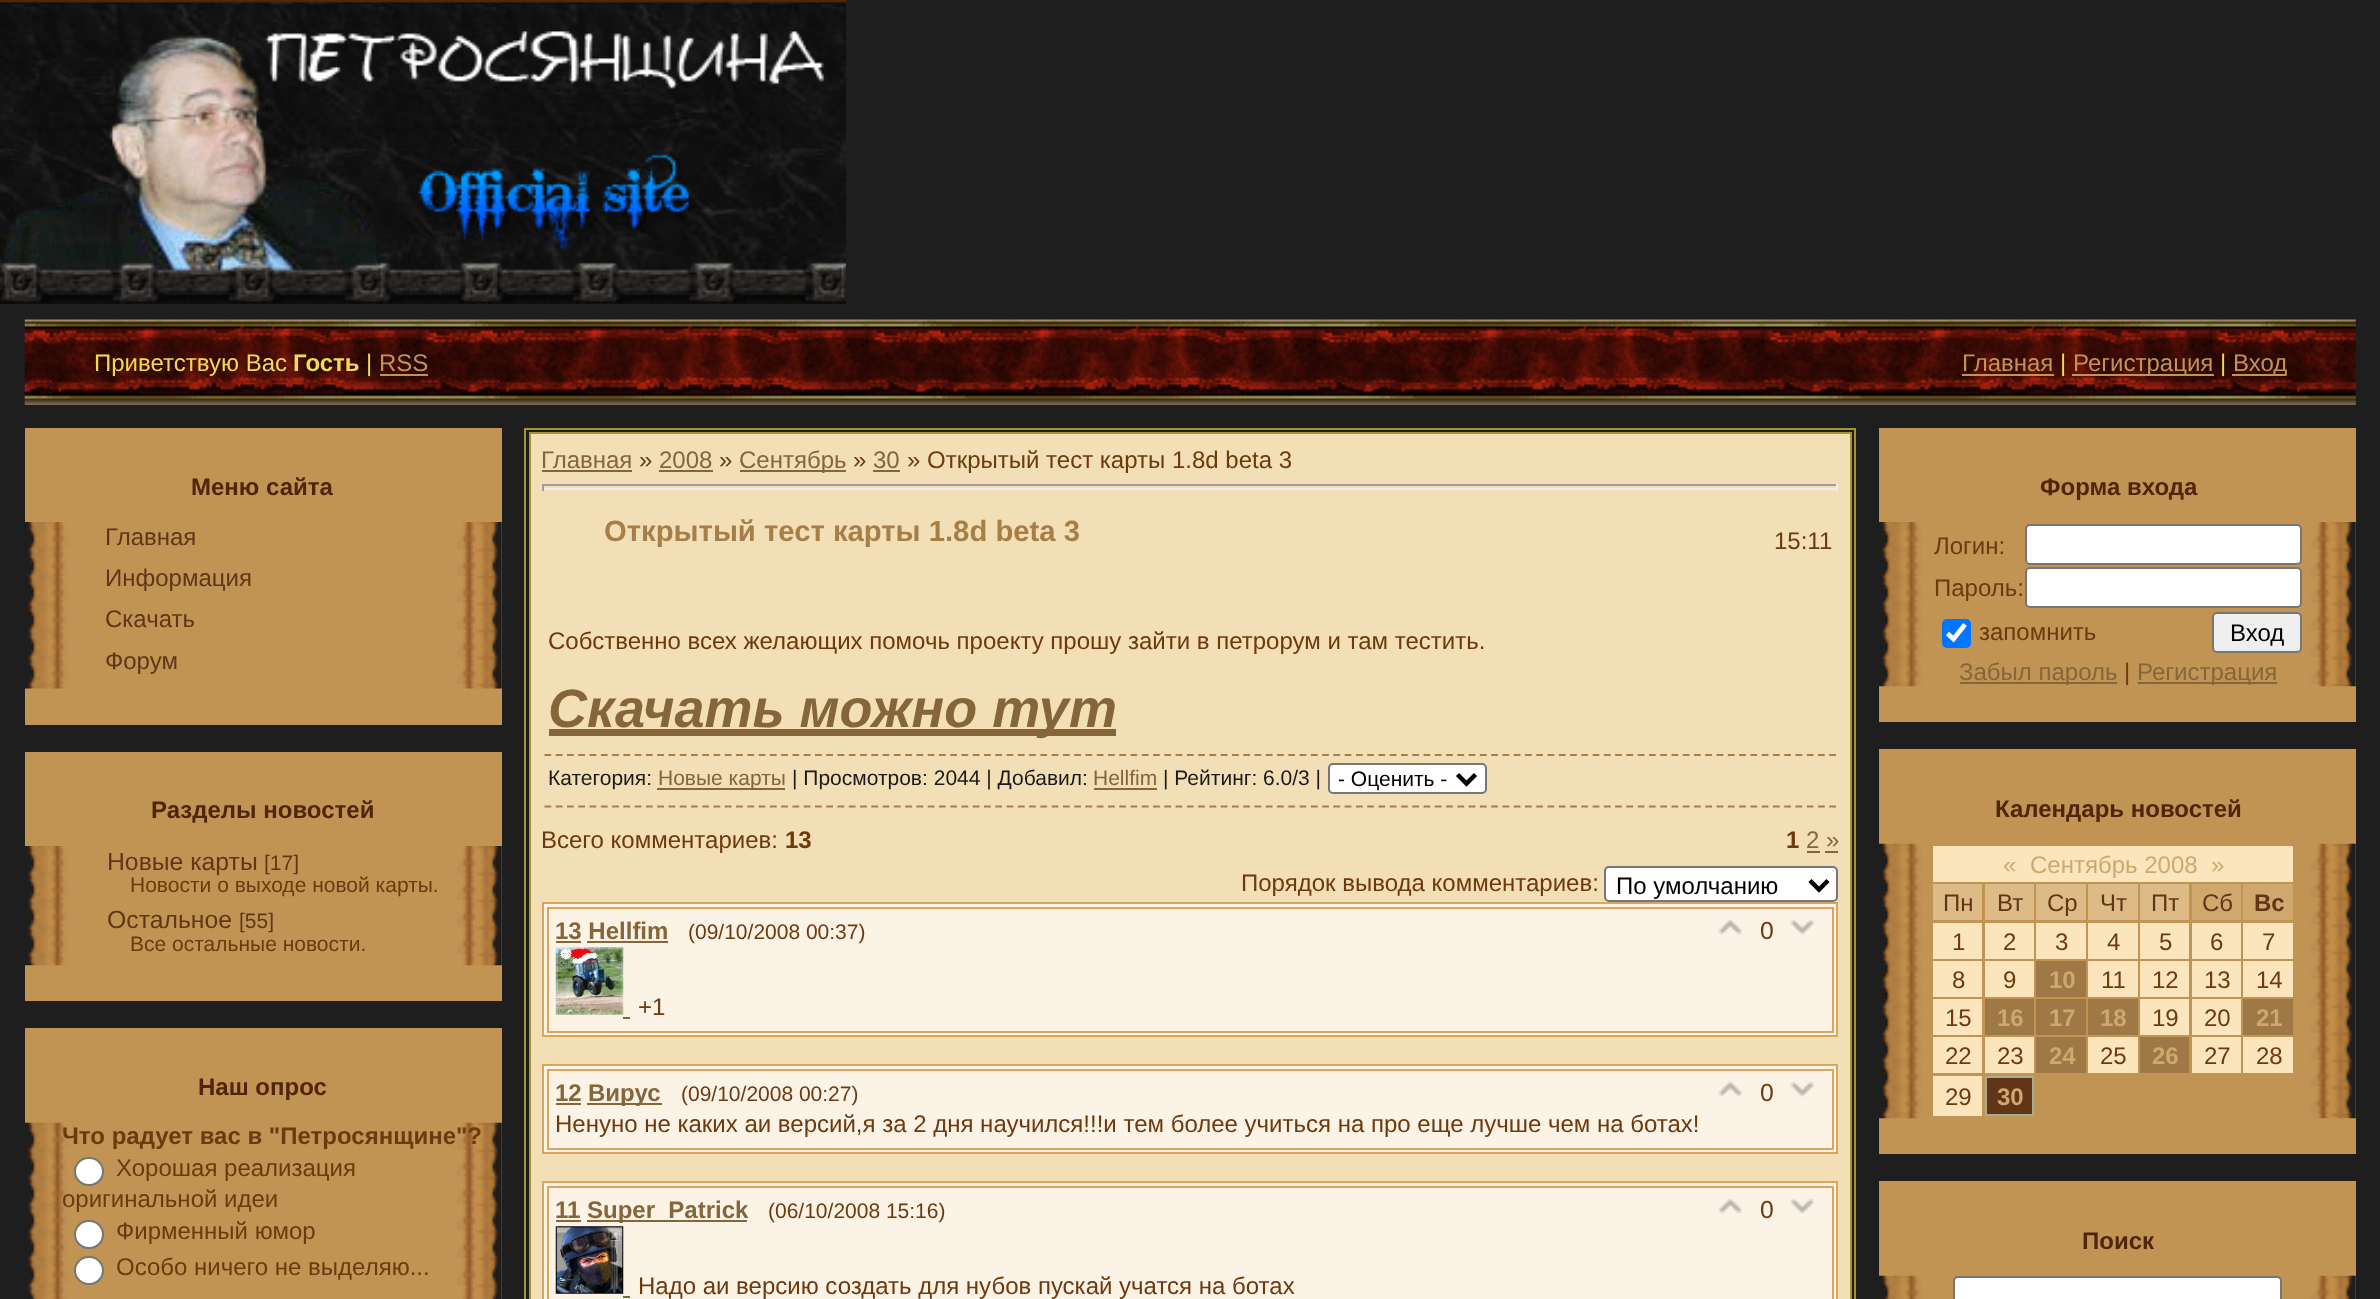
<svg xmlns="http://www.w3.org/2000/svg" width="2380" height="1299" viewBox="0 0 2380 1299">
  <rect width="100%" height="100%" fill="#1e1e1e"/>
  <image x="0" y="0" width="846" height="304" href="img/1.png"/>
  <image x="24" y="319" width="2332" height="86" href="img/2.png"/>
  <path d="M380 374h48v2H380z" fill="#c19355"/>
  <path d="M1962 374h92v2H1962z" fill="#c19355"/>
  <path d="M2072 374h142v2H2072z" fill="#c19355"/>
  <path d="M2232 374h54v2H2232z" fill="#c19355"/>
  <path d="M25 428h477v297H25z" fill="#c19454"/>
  <image x="25" y="522" width="477" height="167" href="img/3.png"/>
  <path d="M25 752h477v249H25z" fill="#c19454"/>
  <image x="25" y="846" width="477" height="120" href="img/4.png"/>
  <path d="M25 1028h477v271H25z" fill="#c19454"/>
  <image x="25" y="1122" width="477" height="177" href="img/5.png"/>
  <rect x="75" y="1158" width="28" height="27" rx="13.5" fill="#fff" stroke="#767676" stroke-width="2"/>
  <rect x="75" y="1221" width="28" height="27" rx="13.5" fill="#fff" stroke="#767676" stroke-width="2"/>
  <rect x="75" y="1257" width="28" height="27" rx="13.5" fill="#fff" stroke="#767676" stroke-width="2"/>
  <path d="M525 429h1330v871H525z" fill="none" stroke="#a89236" stroke-width="2"/>
  <path d="M530 433h1321v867H530z" fill="none" stroke="#a89236" stroke-width="2"/>
  <path d="M531 434h1319v865H531z" fill="#f2dfb5"/>
  <path d="M542 470h90v2H542z" fill="#85663a"/>
  <path d="M659 470h54v2H659z" fill="#85663a"/>
  <path d="M740 470h106v2H740z" fill="#85663a"/>
  <path d="M873 470h27v2H873z" fill="#85663a"/>
  <path d="M542 484h1296v2H542z" fill="#9f9f9f"/>
  <path d="M1836 484h2v7H1836z" fill="#eee"/>
  <path d="M542 488h1296v2H542z" fill="#eee"/>
  <path d="M542 484h2v7H542z" fill="#9f9f9f"/>
  <path d="M549 729h567v7H549z" fill="#85663a"/>
  <path d="M544.5 755H1836" fill="none" stroke="#a67f48" stroke-width="2.2" stroke-dasharray="6.75 4.52"/>
  <path d="M544.5 806.5H1836" fill="none" stroke="#a67f48" stroke-width="2.2" stroke-dasharray="6.75 4.52"/>
  <path d="M657 788h128v2H657z" fill="#85663a"/>
  <path d="M1094 788h63v2H1094z" fill="#85663a"/>
  <rect x="1329" y="764" width="157" height="29" rx="4" fill="#fff" stroke="#767676" stroke-width="2"/>
  <path d="M1457.5 774.5L1466.5 783.5L1475.5 774.5" fill="none" stroke="#000" stroke-width="4.5"/>
  <path d="M1807 851h13v2H1807z" fill="#85663a"/>
  <path d="M1825 851h13v2H1825z" fill="#85663a"/>
  <rect x="1605" y="867" width="232" height="34" rx="4" fill="#fff" stroke="#767676" stroke-width="2"/>
  <path d="M1810 880.5L1819 889.5L1828 880.5" fill="none" stroke="#000" stroke-width="4.5"/>
  <path d="M543 903h1294v133H543z" fill="#fbf3e5" stroke="#d8a65e" stroke-width="2"/>
  <path d="M548 908h1285v124H548z" fill="none" stroke="#d8a65e" stroke-width="2"/>
  <path d="M556 941h25v2H556z" fill="#85663a"/>
  <path d="M587 941h81v2H587z" fill="#85663a"/>
  <image x="1718" y="919" width="24" height="16" href="img/6.png"/>
  <image x="1790" y="919" width="24" height="16" href="img/7.png"/>
  <image x="555" y="947" width="69" height="68" href="img/8.png"/>
  <path d="M623 1017h7v2H623z" fill="#85663a"/>
  <path d="M543 1065h1294v88H543z" fill="#fbf3e5" stroke="#d8a65e" stroke-width="2"/>
  <path d="M548 1070h1285v79H548z" fill="none" stroke="#d8a65e" stroke-width="2"/>
  <path d="M556 1103h25v2H556z" fill="#85663a"/>
  <path d="M587 1103h75v2H587z" fill="#85663a"/>
  <image x="1718" y="1081" width="24" height="16" href="img/6.png"/>
  <image x="1790" y="1081" width="24" height="16" href="img/7.png"/>
  <path d="M543 1182h1294v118H543z" fill="#fbf3e5" stroke="#d8a65e" stroke-width="2"/>
  <path d="M548 1187h1285v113H548z" fill="none" stroke="#d8a65e" stroke-width="2"/>
  <path d="M556 1220h25v2H556z" fill="#85663a"/>
  <path d="M587 1220h160v2H587z" fill="#85663a"/>
  <image x="1718" y="1198" width="24" height="16" href="img/6.png"/>
  <image x="1790" y="1198" width="24" height="16" href="img/7.png"/>
  <image x="555" y="1226" width="69" height="68" href="img/9.png"/>
  <path d="M623 1296h7v2H623z" fill="#85663a"/>
  <path d="M1879 428h477v294H1879z" fill="#c19454"/>
  <image x="1879" y="522" width="477" height="165" href="img/10.png"/>
  <rect x="2026" y="525" width="275" height="39" rx="4" fill="#fff" stroke="#767676" stroke-width="2"/>
  <rect x="2026" y="568" width="275" height="39" rx="4" fill="#fff" stroke="#767676" stroke-width="2"/>
  <rect x="1942" y="619" width="29" height="29" rx="5" fill="#0075ff"/>
  <path d="M1947.5 633.5L1953.5 639L1965 624.5" fill="none" stroke="#fff" stroke-width="4.7"/>
  <rect x="2213" y="613" width="88" height="39" rx="4" fill="#efefef" stroke="#767676" stroke-width="2"/>
  <path d="M1960 682h157v2H1960z" fill="#85663a"/>
  <path d="M2138 682h139v2H2138z" fill="#85663a"/>
  <path d="M1879 749h477v405H1879z" fill="#c19454"/>
  <image x="1879" y="843" width="477" height="276" href="img/11.png"/>
  <path d="M1933 846h360v36H1933z" fill="#fbe5bc"/>
  <path d="M1933 884h49v36H1933z" fill="#ddbb86"/>
  <path d="M1985 884h49v36H1985z" fill="#ddbb86"/>
  <path d="M2036 884h50v36H2036z" fill="#ddbb86"/>
  <path d="M2088 884h50v36H2088z" fill="#ddbb86"/>
  <path d="M2140 884h49v36H2140z" fill="#ddbb86"/>
  <path d="M2192 884h49v36H2192z" fill="#cfa86e"/>
  <path d="M2243 884h50v36H2243z" fill="#cfa86e"/>
  <path d="M1933 923h49v36H1933z" fill="#fbe5bc"/>
  <path d="M1985 923h49v36H1985z" fill="#fbe5bc"/>
  <path d="M2036 923h50v36H2036z" fill="#fbe5bc"/>
  <path d="M2088 923h50v36H2088z" fill="#fbe5bc"/>
  <path d="M2140 923h49v36H2140z" fill="#fbe5bc"/>
  <path d="M2192 923h49v36H2192z" fill="#fbe5bc"/>
  <path d="M2243 923h50v36H2243z" fill="#fbe5bc"/>
  <path d="M1933 961h49v36H1933z" fill="#fbe5bc"/>
  <path d="M1985 961h49v36H1985z" fill="#fbe5bc"/>
  <path d="M2036 961h50v36H2036z" fill="#9e7945"/>
  <path d="M2088 961h50v36H2088z" fill="#fbe5bc"/>
  <path d="M2140 961h49v36H2140z" fill="#fbe5bc"/>
  <path d="M2192 961h49v36H2192z" fill="#fbe5bc"/>
  <path d="M2243 961h50v36H2243z" fill="#fbe5bc"/>
  <path d="M1933 999h49v36H1933z" fill="#fbe5bc"/>
  <path d="M1985 999h49v36H1985z" fill="#9e7945"/>
  <path d="M2036 999h50v36H2036z" fill="#9e7945"/>
  <path d="M2088 999h50v36H2088z" fill="#9e7945"/>
  <path d="M2140 999h49v36H2140z" fill="#fbe5bc"/>
  <path d="M2192 999h49v36H2192z" fill="#fbe5bc"/>
  <path d="M2243 999h50v36H2243z" fill="#9e7945"/>
  <path d="M1933 1037h49v36H1933z" fill="#fbe5bc"/>
  <path d="M1985 1037h49v36H1985z" fill="#fbe5bc"/>
  <path d="M2036 1037h50v36H2036z" fill="#9e7945"/>
  <path d="M2088 1037h50v36H2088z" fill="#fbe5bc"/>
  <path d="M2140 1037h49v36H2140z" fill="#9e7945"/>
  <path d="M2192 1037h49v36H2192z" fill="#fbe5bc"/>
  <path d="M2243 1037h50v36H2243z" fill="#fbe5bc"/>
  <path d="M1933 1076h49v40H1933z" fill="#fbe5bc"/>
  <path d="M1986 1077h47v38H1986z" fill="#613618" stroke="#a6ab94" stroke-width="2"/>
  <path d="M1879 1181h477v118H1879z" fill="#c19454"/>
  <image x="1879" y="1275" width="477" height="24" href="img/12.png"/>
  <rect x="1954" y="1277" width="327" height="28" rx="4" fill="#fff" stroke="#767676" stroke-width="2"/>
  <text x="94" y="371" font-family="Liberation Sans" font-size="24" fill="#efd959">Приветствую Вас</text>
  <text x="293" y="371" font-family="Liberation Sans" font-size="24" font-weight="bold" fill="#efd959">Гость</text>
  <text x="366" y="371" font-family="Liberation Sans" font-size="24" fill="#efd959">|</text>
  <g font-family="Liberation Sans" font-size="24" fill="#c19355">
    <text x="379" y="371">RSS</text>
    <text x="1962" y="371">Главная</text>
  </g>
  <text x="2060" y="371" font-family="Liberation Sans" font-size="24" fill="#efd959">|</text>
  <text x="2073" y="371" font-family="Liberation Sans" font-size="24" fill="#c19355">Регистрация</text>
  <text x="2220" y="371" font-family="Liberation Sans" font-size="24" fill="#efd959">|</text>
  <text x="2233" y="371" font-family="Liberation Sans" font-size="24" fill="#c19355">Вход</text>
  <text x="191" y="495" font-family="Liberation Sans" font-size="24" font-weight="bold" fill="#51250c">Меню сайта</text>
  <g font-family="Liberation Sans" font-size="24" fill="#613618">
    <text x="105" y="545">Главная</text>
    <text x="105" y="586">Информация</text>
    <text x="105" y="627">Скачать</text>
    <text x="105" y="669">Форум</text>
  </g>
  <text x="151" y="818" font-family="Liberation Sans" font-size="24" font-weight="bold" fill="#51250c">Разделы новостей</text>
  <text x="107" y="870" font-family="Liberation Sans" font-size="24.75" fill="#613618">Новые карты</text>
  <text x="264" y="870" font-family="Liberation Sans" font-size="21" fill="#613618">[17]</text>
  <text x="130" y="892" font-family="Liberation Sans" font-size="21" fill="#6d390d">Новости о выходе новой карты.</text>
  <text x="107" y="928" font-family="Liberation Sans" font-size="24.75" fill="#613618">Остальное</text>
  <text x="239" y="928" font-family="Liberation Sans" font-size="21" fill="#613618">[55]</text>
  <text x="130" y="951" font-family="Liberation Sans" font-size="21" fill="#6d390d">Все остальные новости.</text>
  <text x="198" y="1095" font-family="Liberation Sans" font-size="24" font-weight="bold" fill="#51250c">Наш опрос</text>
  <text x="62" y="1144" font-family="Liberation Sans" font-size="24" font-weight="bold" fill="#6d390d">Что радует вас в "Петросянщине"?</text>
  <g font-family="Liberation Sans" font-size="24" fill="#6d390d">
    <text x="116" y="1176">Хорошая реализация</text>
    <text x="62" y="1207">оригинальной идеи</text>
    <text x="116" y="1239">Фирменный юмор</text>
    <text x="116" y="1275">Особо ничего не выделяю...</text>
  </g>
  <text x="541" y="468" font-family="Liberation Sans" font-size="24" fill="#85663a">Главная</text>
  <text x="639" y="468" font-family="Liberation Sans" font-size="24" fill="#6d390d">»</text>
  <text x="659" y="468" font-family="Liberation Sans" font-size="24" fill="#85663a">2008</text>
  <text x="719" y="468" font-family="Liberation Sans" font-size="24" fill="#6d390d">»</text>
  <text x="739" y="468" font-family="Liberation Sans" font-size="24" fill="#85663a">Сентябрь</text>
  <text x="853" y="468" font-family="Liberation Sans" font-size="24" fill="#6d390d">»</text>
  <text x="873" y="468" font-family="Liberation Sans" font-size="24" fill="#85663a">30</text>
  <text x="907" y="468" font-family="Liberation Sans" font-size="24" fill="#6d390d">» Открытый тест карты 1.8d beta 3</text>
  <text x="604" y="541" font-family="Liberation Sans" font-size="29.25" font-weight="bold" fill="#a67f48">Открытый тест карты 1.8d beta 3</text>
  <g font-family="Liberation Sans" font-size="24" fill="#6d390d">
    <text x="1774" y="549">15:11</text>
    <text x="548" y="649">Собственно всех желающих помочь проекту прошу зайти в петрорум и там тестить.</text>
  </g>
  <text x="548" y="727" font-family="Liberation Sans" font-size="54" font-weight="bold" font-style="italic" fill="#85663a">Скачать можно тут</text>
  <text x="548" y="785" font-family="Liberation Sans" font-size="21" fill="#1a1a1a">Категория:</text>
  <text x="658" y="785" font-family="Liberation Sans" font-size="21" fill="#85663a">Новые карты</text>
  <text x="792" y="785" font-family="Liberation Sans" font-size="21" fill="#1a1a1a">| Просмотров: 2044 | Добавил:</text>
  <text x="1093" y="785" font-family="Liberation Sans" font-size="21" fill="#85663a">Hellfim</text>
  <text x="1163" y="785" font-family="Liberation Sans" font-size="21" fill="#1a1a1a">| Рейтинг: 6.0/3 |</text>
  <text x="1338" y="786" font-family="Liberation Sans" font-size="21" fill="#000">- Оценить -</text>
  <text x="541" y="848" font-family="Liberation Sans" font-size="24" fill="#6d390d">Всего комментариев:</text>
  <g font-family="Liberation Sans" font-size="24" font-weight="bold" fill="#6d390d">
    <text x="785" y="848">13</text>
    <text x="1786" y="848">1</text>
  </g>
  <text x="1806" y="848" font-family="Liberation Sans" font-size="24" fill="#85663a">2 »</text>
  <text x="1241" y="891" font-family="Liberation Sans" font-size="24" fill="#6d390d">Порядок вывода комментариев:</text>
  <text x="1616" y="894" font-family="Liberation Sans" font-size="24" fill="#000">По умолчанию</text>
  <text x="555" y="939" font-family="Liberation Sans" font-size="24" font-weight="bold" fill="#85663a">13 Hellfim</text>
  <text x="688" y="939" font-family="Liberation Sans" font-size="21" fill="#6d390d">(09/10/2008 00:37)</text>
  <text x="1760" y="939" font-family="Liberation Sans" font-size="24.75" fill="#6d390d">0</text>
  <text x="638" y="1015" font-family="Liberation Sans" font-size="24" fill="#6d390d">+1</text>
  <g font-family="Liberation Sans" font-size="24" font-weight="bold" fill="#85663a">
    <text x="555" y="1101">12</text>
    <text x="588" y="1101">Вирус</text>
  </g>
  <text x="681" y="1101" font-family="Liberation Sans" font-size="21" fill="#6d390d">(09/10/2008 00:27)</text>
  <text x="1760" y="1101" font-family="Liberation Sans" font-size="24.75" fill="#6d390d">0</text>
  <text x="555" y="1132" font-family="Liberation Sans" font-size="24" fill="#6d390d">Ненуно не каких аи версий,я за 2 дня научился!!!и тем более учиться на про еще лучше чем на ботах!</text>
  <g font-family="Liberation Sans" font-size="24" font-weight="bold" fill="#85663a">
    <text x="555" y="1218">11</text>
    <text x="587" y="1218">Super_Patrick</text>
  </g>
  <text x="768" y="1218" font-family="Liberation Sans" font-size="21" fill="#6d390d">(06/10/2008 15:16)</text>
  <text x="1760" y="1218" font-family="Liberation Sans" font-size="24.75" fill="#6d390d">0</text>
  <text x="638" y="1294" font-family="Liberation Sans" font-size="24" fill="#6d390d">Надо аи версию создать для нубов пускай учатся на ботах</text>
  <text x="2040" y="495" font-family="Liberation Sans" font-size="24" font-weight="bold" fill="#51250c">Форма входа</text>
  <g font-family="Liberation Sans" font-size="24" fill="#6d390d">
    <text x="1934" y="554">Логин:</text>
    <text x="1934" y="596">Пароль:</text>
    <text x="1979" y="640">запомнить</text>
  </g>
  <text x="2230" y="641" font-family="Liberation Sans" font-size="24" fill="#000">Вход</text>
  <text x="1959" y="680" font-family="Liberation Sans" font-size="24" fill="#85663a">Забыл пароль</text>
  <text x="2124" y="680" font-family="Liberation Sans" font-size="24" fill="#6d390d">|</text>
  <text x="2137" y="680" font-family="Liberation Sans" font-size="24" fill="#85663a">Регистрация</text>
  <text x="1995" y="817" font-family="Liberation Sans" font-size="24" font-weight="bold" fill="#51250c">Календарь новостей</text>
  <g font-family="Liberation Sans" font-size="24" fill="#cfa86e">
    <text x="2003" y="873">«</text>
    <text x="2030" y="873">Сентябрь 2008</text>
    <text x="2211" y="873">»</text>
  </g>
  <g font-family="Liberation Sans" font-size="24" fill="#613618">
    <text x="1943" y="911">Пн</text>
    <text x="1997" y="911">Вт</text>
    <text x="2047" y="911">Ср</text>
    <text x="2100" y="911">Чт</text>
    <text x="2151" y="911">Пт</text>
    <text x="2202" y="911">Сб</text>
  </g>
  <text x="2254" y="911" font-family="Liberation Sans" font-size="24" font-weight="bold" fill="#613618">Вс</text>
  <g font-family="Liberation Sans" font-size="24" fill="#6d390d">
    <text x="1952" y="950">1</text>
    <text x="2003" y="950">2</text>
    <text x="2055" y="950">3</text>
    <text x="2107" y="950">4</text>
    <text x="2159" y="950">5</text>
    <text x="2210" y="950">6</text>
    <text x="2262" y="950">7</text>
    <text x="1952" y="988">8</text>
    <text x="2003" y="988">9</text>
  </g>
  <text x="2049" y="988" font-family="Liberation Sans" font-size="24" font-weight="bold" fill="#cfa86e">10</text>
  <g font-family="Liberation Sans" font-size="24" fill="#6d390d">
    <text x="2101" y="988">11</text>
    <text x="2152" y="988">12</text>
    <text x="2204" y="988">13</text>
    <text x="2256" y="988">14</text>
    <text x="1945" y="1026">15</text>
  </g>
  <g font-family="Liberation Sans" font-size="24" font-weight="bold" fill="#cfa86e">
    <text x="1997" y="1026">16</text>
    <text x="2049" y="1026">17</text>
    <text x="2100" y="1026">18</text>
  </g>
  <g font-family="Liberation Sans" font-size="24" fill="#6d390d">
    <text x="2152" y="1026">19</text>
    <text x="2204" y="1026">20</text>
  </g>
  <text x="2256" y="1026" font-family="Liberation Sans" font-size="24" font-weight="bold" fill="#cfa86e">21</text>
  <g font-family="Liberation Sans" font-size="24" fill="#6d390d">
    <text x="1945" y="1064">22</text>
    <text x="1997" y="1064">23</text>
  </g>
  <text x="2049" y="1064" font-family="Liberation Sans" font-size="24" font-weight="bold" fill="#cfa86e">24</text>
  <text x="2100" y="1064" font-family="Liberation Sans" font-size="24" fill="#6d390d">25</text>
  <text x="2152" y="1064" font-family="Liberation Sans" font-size="24" font-weight="bold" fill="#cfa86e">26</text>
  <g font-family="Liberation Sans" font-size="24" fill="#6d390d">
    <text x="2204" y="1064">27</text>
    <text x="2256" y="1064">28</text>
    <text x="1945" y="1105">29</text>
  </g>
  <text x="1997" y="1105" font-family="Liberation Sans" font-size="24" font-weight="bold" fill="#cfa86e">30</text>
  <text x="2082" y="1249" font-family="Liberation Sans" font-size="24" font-weight="bold" fill="#51250c">Поиск</text>
</svg>
